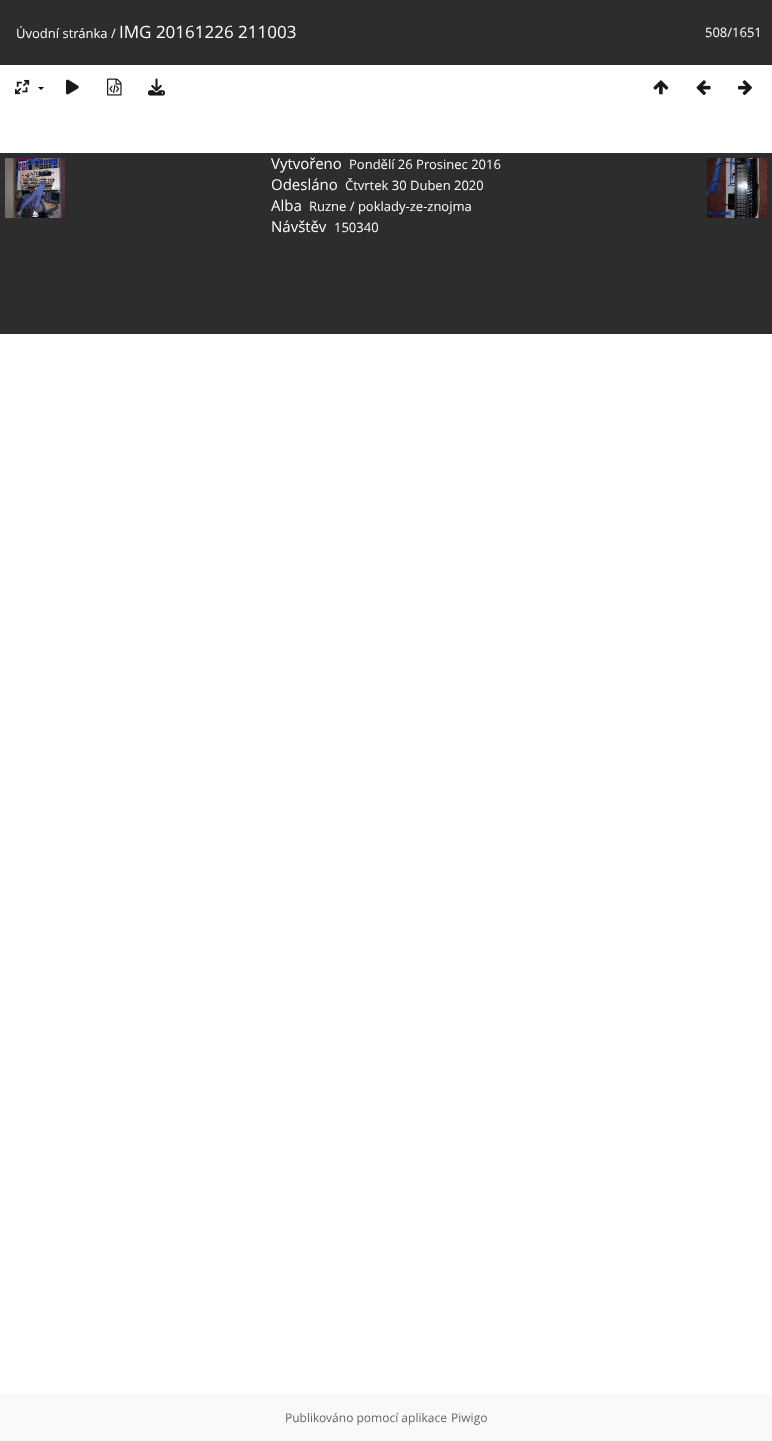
<svg xmlns="http://www.w3.org/2000/svg" width="772" height="1441" viewBox="0 0 772 1441">
  <rect width="100%" height="100%" fill="#fff"/>
  <path d="M0 0h772v65H0z" fill="#2d2d2d"/>
  <image x="15" y="79" width="15" height="16" href="img/1.png"/>
  <path d="M38 87H44L41 90Z" fill="#000"/>
  <image x="66" y="79" width="13" height="16" href="img/2.png"/>
  <image x="107" y="78" width="15" height="18" href="img/3.png"/>
  <image x="148" y="78" width="17" height="18" href="img/4.png"/>
  <image x="653" y="80" width="16" height="15" href="img/5.png"/>
  <image x="696" y="80" width="15" height="15" href="img/6.png"/>
  <image x="738" y="80" width="14" height="15" href="img/7.png"/>
  <path d="M0 153h772v181H0z" fill="#2d2d2d"/>
  <image x="5" y="158" width="60" height="60" href="img/8.png"/>
  <image x="707" y="158" width="60" height="60" href="img/9.png"/>
  <path d="M0 1394h772v47H0z" fill="#f9f9f9"/>
  <text x="16" y="38" font-family="Open Sans" font-size="13" fill="#fff">Úvodní stránka /</text>
  <text x="119" y="38" font-family="Open Sans" font-size="17" fill="#fff">IMG 20161226 211003</text>
  <text x="705" y="37" font-family="Open Sans" font-size="13" fill="#fff">508/1651</text>
  <text x="271" y="169" font-family="Open Sans" font-size="15" fill="#fff">Vytvořeno</text>
  <text x="349" y="169" font-family="Open Sans" font-size="13" fill="#fff">Pondělí 26 Prosinec 2016</text>
  <text x="271" y="190" font-family="Open Sans" font-size="15" fill="#fff">Odesláno</text>
  <text x="345" y="190" font-family="Open Sans" font-size="13" fill="#fff">Čtvrtek 30 Duben 2020</text>
  <text x="271" y="211" font-family="Open Sans" font-size="15" fill="#fff">Alba</text>
  <text x="309" y="211" font-family="Open Sans" font-size="13" fill="#fff">Ruzne / poklady-ze-znojma</text>
  <text x="271" y="232" font-family="Open Sans" font-size="15" fill="#fff">Návštěv</text>
  <text x="334" y="232" font-family="Open Sans" font-size="13" fill="#fff">150340</text>
  <g font-family="Open Sans" font-size="12" fill="#666">
    <text x="285" y="1422">Publikováno pomocí aplikace</text>
    <text x="451" y="1422">Piwigo</text>
  </g>
</svg>
